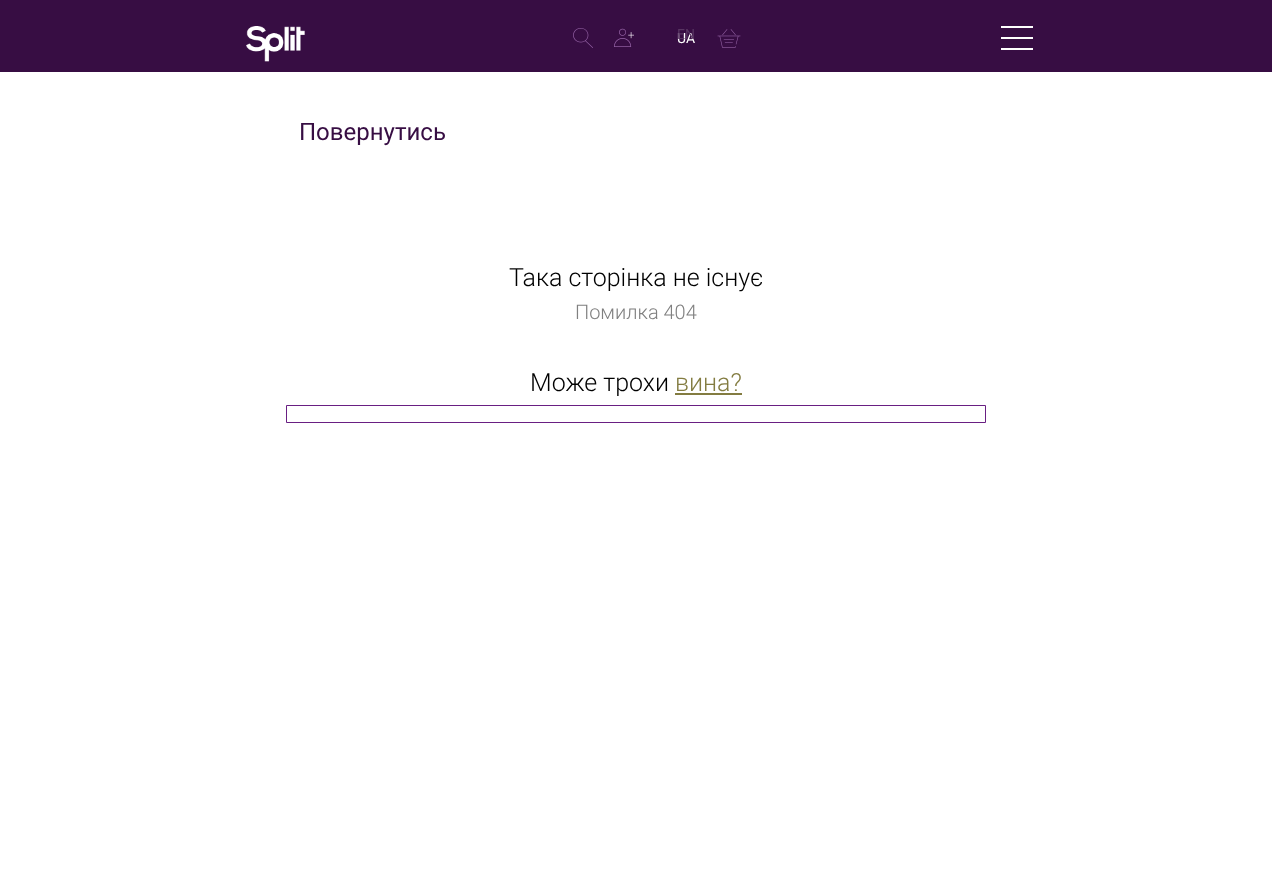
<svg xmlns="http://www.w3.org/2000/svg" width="1272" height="878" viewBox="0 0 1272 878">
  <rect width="100%" height="100%" fill="#fff"/>
  <path d="M0 0h1272v72H0z" fill="#370d43"/>
  <image x="246" y="26" width="59" height="36" href="img/1.png"/>
  <image x="573" y="28" width="20" height="20" href="img/2.png"/>
  <image x="614" y="28" width="20" height="19" href="img/3.png"/>
  <image x="717" y="29" width="24" height="19" href="img/4.png"/>
  <path d="M1001 26h32v2H1001z" fill="#fff"/>
  <path d="M1001 37h32v2H1001z" fill="#fff"/>
  <path d="M1001 48h32v2H1001z" fill="#fff"/>
  <path d="M675 393h67v2H675z" fill="#837c41"/>
  <path d="M286.5 405.5h699v17H286.5z" fill="none" stroke="#691f82"/>
  <text x="677" y="43" font-family="Roboto" font-size="14" fill="#fff">UA</text>
  <text x="677" y="39" font-family="Roboto" font-size="14" fill="#583562">EN</text>
  <text x="299" y="140" font-family="Roboto" font-size="24" fill="#370d43">Повернутись</text>
  <text x="509" y="286" font-family="Roboto" font-size="25" font-weight="300" fill="#000">Така сторінка не існує</text>
  <text x="575" y="319" font-family="Roboto" font-size="20" font-weight="300" fill="#808080">Помилка 404</text>
  <text x="530" y="391" font-family="Roboto" font-size="25" font-weight="300" fill="#000">Може трохи</text>
  <text x="675" y="391" font-family="Roboto" font-size="25" font-weight="300" fill="#837c41">вина?</text>
</svg>
